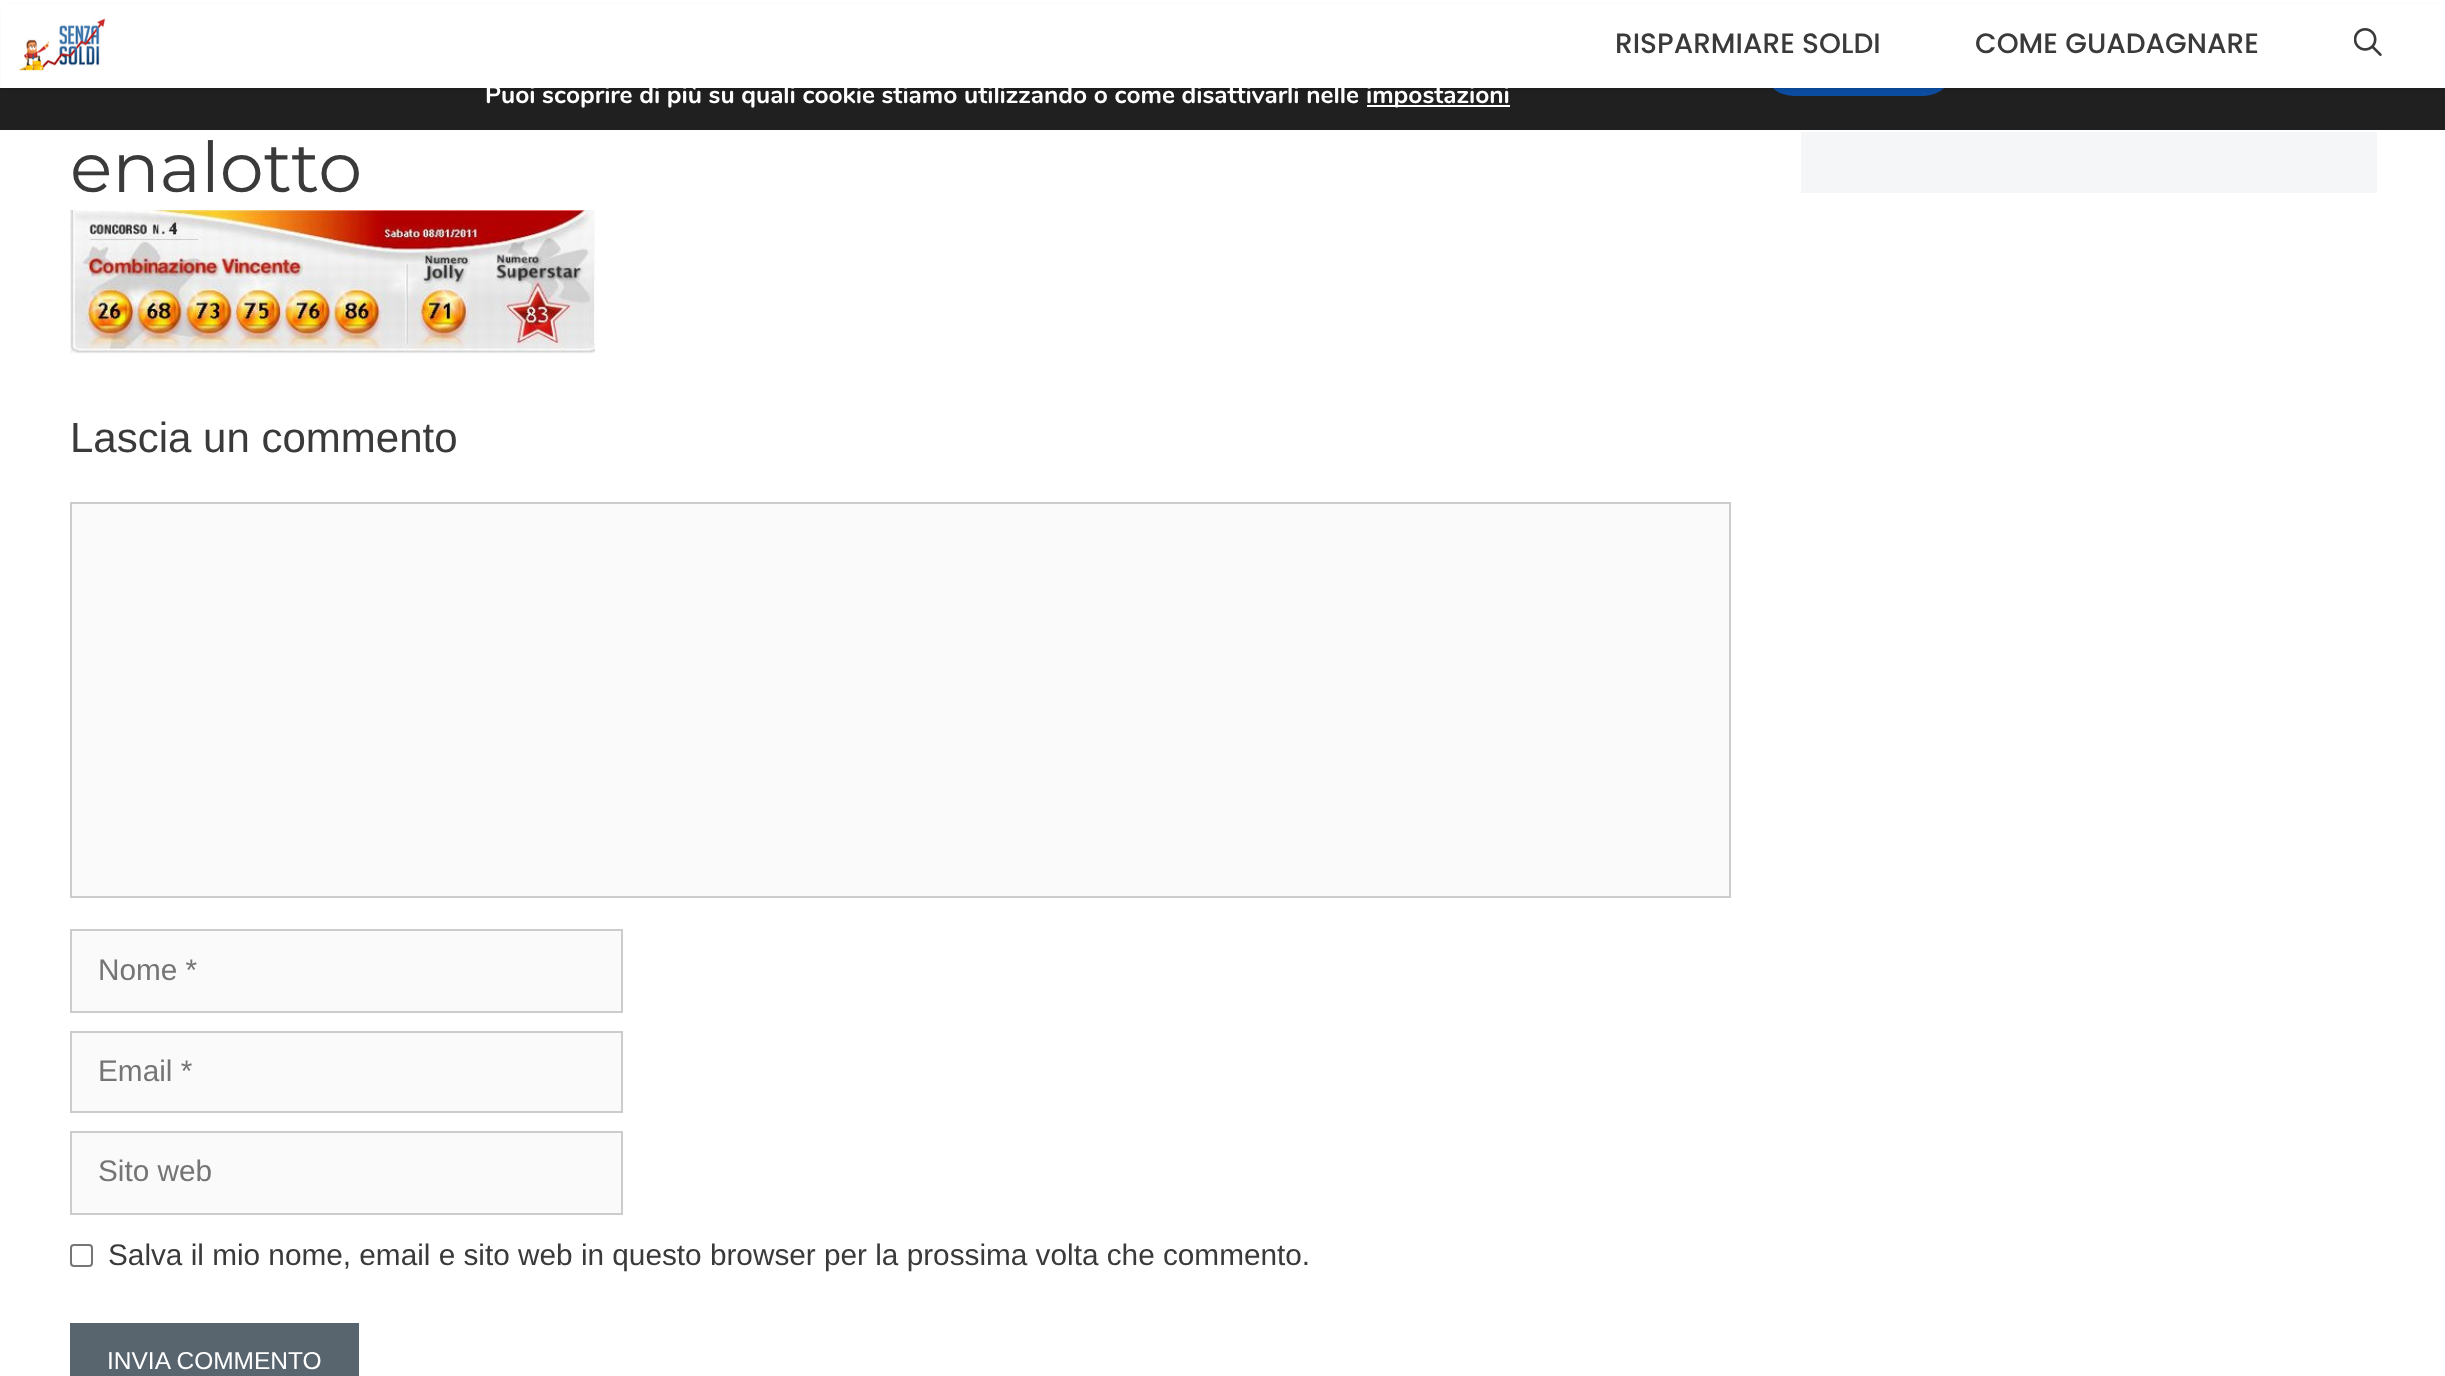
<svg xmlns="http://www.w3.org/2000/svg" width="2445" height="1376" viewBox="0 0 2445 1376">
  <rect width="100%" height="100%" fill="#fff"/>
  <path d="M0 88h2445v42H0z" fill="#202020"/>
  <rect x="1762" y="33" width="193" height="63" rx="31.5" fill="#0c4da2"/>
  <path d="M4 7h2439v81H4z" fill="#00000033" filter="blur(2px)"/>
  <path d="M1 4h2444v84H1z" fill="#fff"/>
  <image x="18" y="18" width="88" height="53" href="img/1.png"/>
  <image x="2354" y="28" width="28" height="28" href="img/2.png"/>
  <path d="M1367 105h143v2H1367z" fill="#fff"/>
  <image x="70" y="210" width="525" height="144" href="img/3.png"/>
  <path d="M71 503h1659v394H71z" fill="#fafafa" stroke="#ccc" stroke-width="2"/>
  <path d="M71 930h551v82H71z" fill="#fafafa" stroke="#ccc" stroke-width="2"/>
  <path d="M71 1032h551v80H71z" fill="#fafafa" stroke="#ccc" stroke-width="2"/>
  <path d="M71 1132h551v82H71z" fill="#fafafa" stroke="#ccc" stroke-width="2"/>
  <rect x="71" y="1245" width="21" height="21" rx="3" fill="none" stroke="#767676" stroke-width="2"/>
  <path d="M70 1323h289v53H70z" fill="#58656f"/>
  <path d="M1801 132h576v61H1801z" fill="#f4f6f7"/>
  <g font-family="Poppins" font-size="28" font-weight="500" fill="#3a3a3a">
    <text x="1615" y="53">RISPARMIARE SOLDI</text>
    <text x="1975" y="53">COME GUADAGNARE</text>
  </g>
  <g font-family="Nunito" font-size="24.5" font-weight="bold" fill="#fff">
    <text x="485" y="103">Puoi scoprire di più su quali cookie stiamo utilizzando o come disattivarli nelle</text>
    <text x="1366" y="103">impostazioni</text>
  </g>
  <text x="70" y="192" font-family="Montserrat" font-size="70" fill="#3a3a3a">enalotto</text>
  <text x="70" y="452" font-family="Liberation Sans" font-size="42" fill="#3a3a3a">Lascia un commento</text>
  <g font-family="Liberation Sans" font-size="29.75" fill="#757575">
    <text x="98" y="980">Nome *</text>
    <text x="98" y="1081">Email *</text>
    <text x="98" y="1181">Sito web</text>
  </g>
  <text x="108" y="1265" font-family="Liberation Sans" font-size="29.75" fill="#3a3a3a">Salva il mio nome, email e sito web in questo browser per la prossima volta che commento.</text>
  <text x="107" y="1369" font-family="Liberation Sans" font-size="24.5" fill="#fff">INVIA COMMENTO</text>
</svg>
